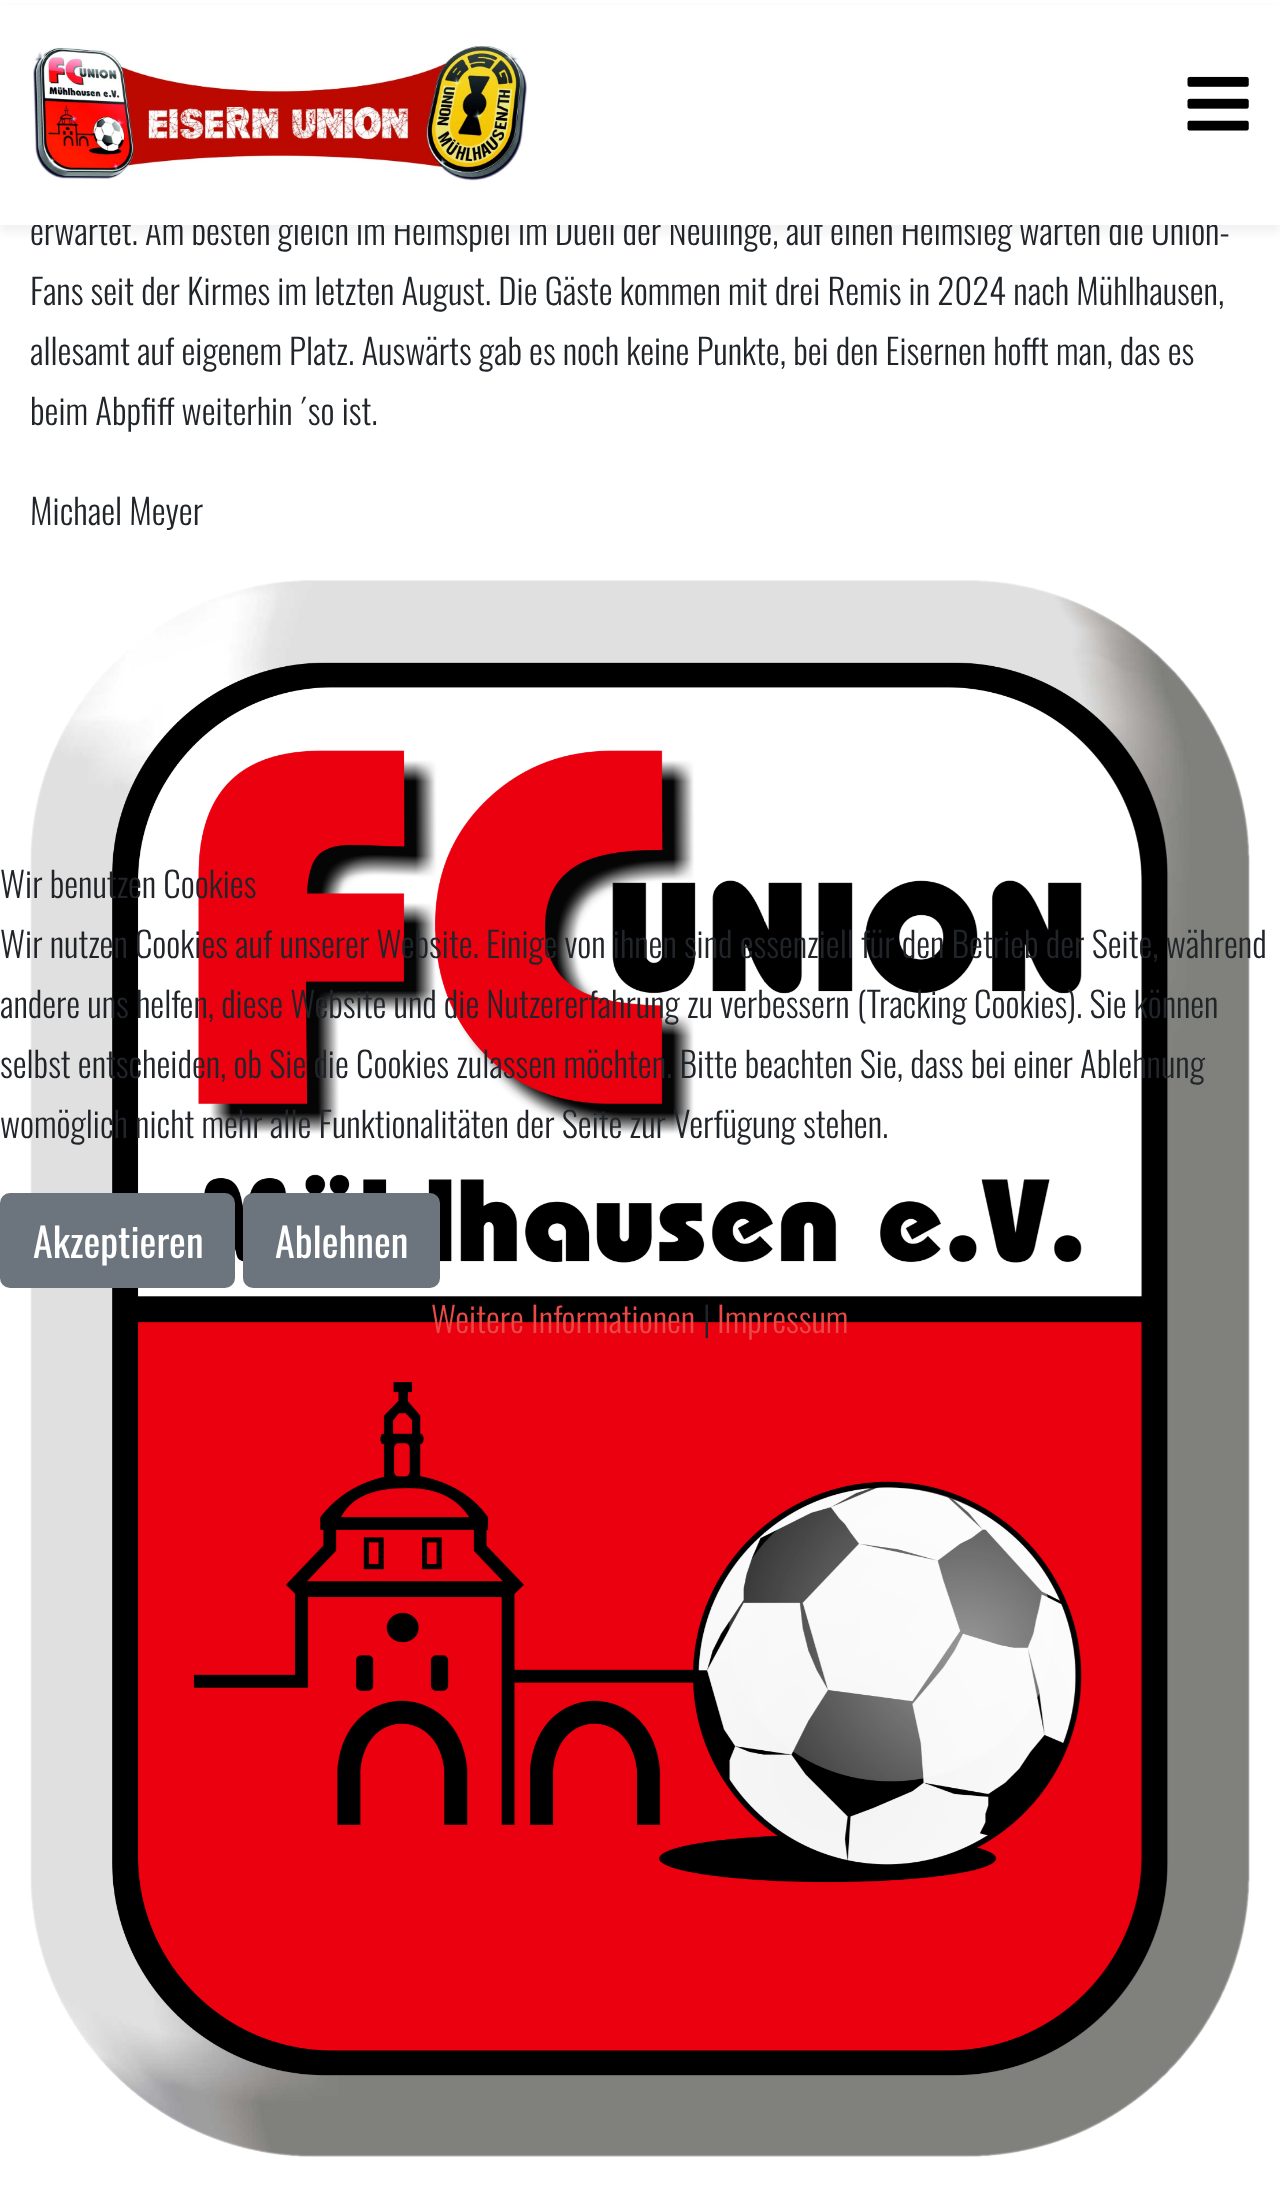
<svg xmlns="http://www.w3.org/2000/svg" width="1280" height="2200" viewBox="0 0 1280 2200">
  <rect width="100%" height="100%" fill="#fff"/>
  <path d="M0 8h1280v225H0z" fill="#0000000d" filter="blur(4px)"/>
  <image x="30" y="580" width="1220" height="1577" href="img/3.png"/>
  <rect x="1.5" y="1194.5" width="232" height="92" rx="8.5" fill="#6c757d" stroke="#6c757d" stroke-width="3"/>
  <rect x="244.5" y="1194.5" width="194" height="92" rx="8.5" fill="#6c757d" stroke="#6c757d" stroke-width="3"/>
  <text x="30" y="245" font-family="Oswald" font-size="35" font-weight="300" fill="#212529">erwartet. Am besten gleich im Heimspiel im Duell der Neulinge, auf einen Heimsieg warten die Union-</text>
  <path d="M0 5h1280v220H0z" fill="#fff"/>
  <image x="1187" y="76" width="62" height="55" href="img/2.png"/>
  <image x="33" y="45" width="495" height="136" href="img/1.png"/>
  <g font-family="Oswald" font-size="35" font-weight="300" fill="#212529">
    <text x="30" y="305">Fans seit der Kirmes im letzten August. Die Gäste kommen mit drei Remis in 2024 nach Mühlhausen,</text>
    <text x="30" y="365">allesamt auf eigenem Platz. Auswärts gab es noch keine Punkte, bei den Eisernen hofft man, das es</text>
    <text x="30" y="425">beim Abpfiff weiterhin ´so ist.</text>
    <text x="30" y="525">Michael Meyer</text>
    <text x="0" y="898">Wir benutzen Cookies</text>
    <text x="0" y="958">Wir nutzen Cookies auf unserer Website. Einige von ihnen sind essenziell für den Betrieb der Seite, während</text>
    <text x="0" y="1018">andere uns helfen, diese Website und die Nutzererfahrung zu verbessern (Tracking Cookies). Sie können</text>
    <text x="0" y="1078">selbst entscheiden, ob Sie die Cookies zulassen möchten. Bitte beachten Sie, dass bei einer Ablehnung</text>
    <text x="0" y="1138">womöglich nicht mehr alle Funktionalitäten der Seite zur Verfügung stehen.</text>
  </g>
  <g font-family="Oswald" font-size="40" fill="#fff">
    <text x="33" y="1258">Akzeptieren</text>
    <text x="275" y="1258">Ablehnen</text>
  </g>
  <text x="431" y="1333" font-family="Oswald" font-size="35" font-weight="300" fill="#eb4947">Weitere Informationen</text>
  <text x="703" y="1333" font-family="Oswald" font-size="35" font-weight="300" fill="#212529">|</text>
  <text x="717" y="1333" font-family="Oswald" font-size="35" font-weight="300" fill="#eb4947">Impressum</text>
</svg>
